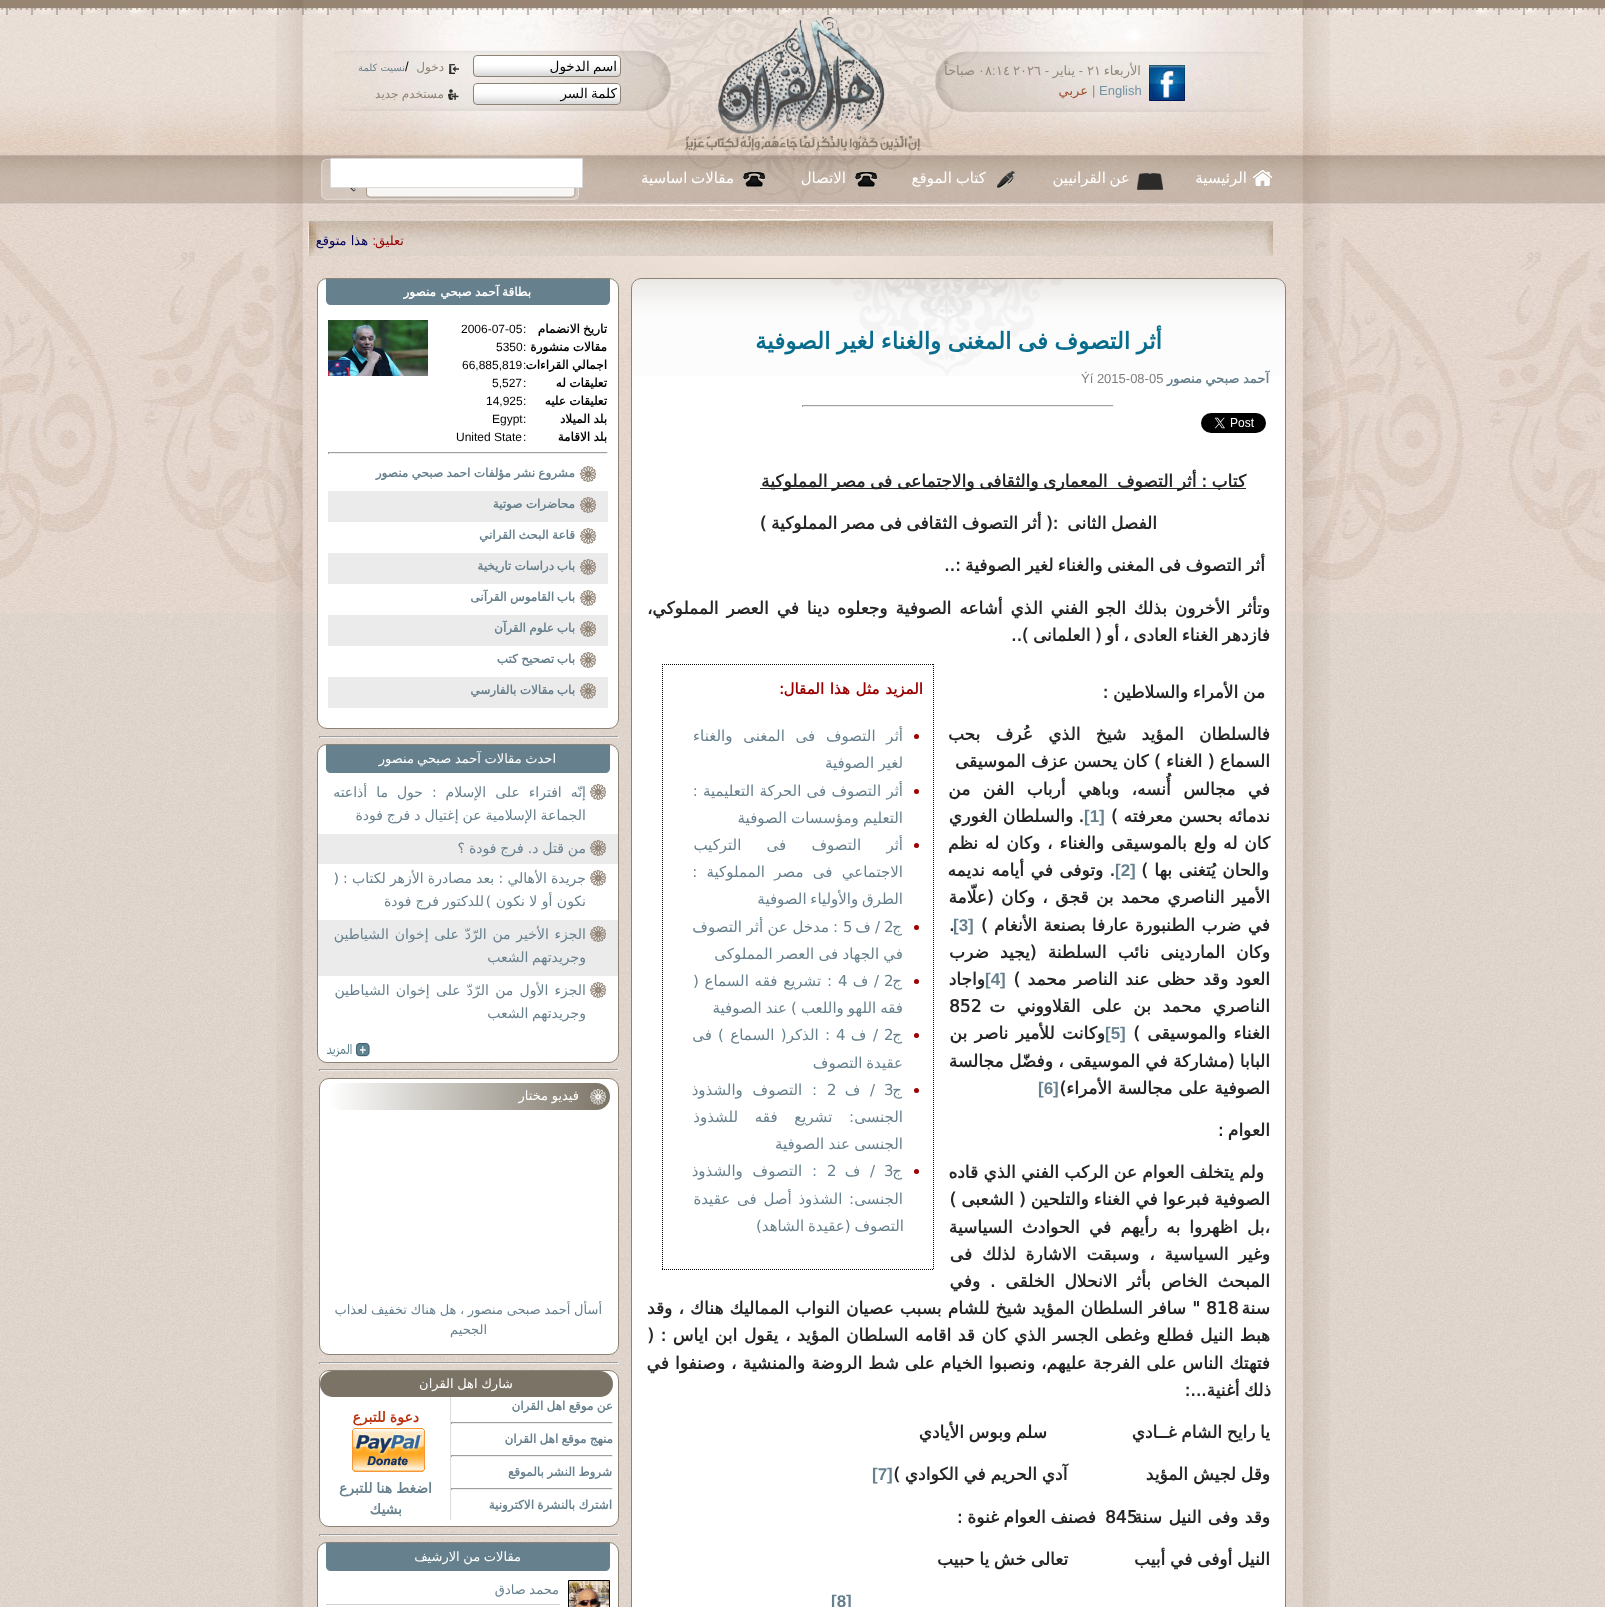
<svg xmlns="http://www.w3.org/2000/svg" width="1605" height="1607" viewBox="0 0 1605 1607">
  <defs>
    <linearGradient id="g1" gradientUnits="userSpaceOnUse" x1="328" y1="1097" x2="610" y2="1097"><stop offset="0" stop-color="#fff"/><stop offset="1" stop-color="#7b7365"/></linearGradient>
    <clipPath id="clip1"><path d="M477 59h140v15H477z"/></clipPath>
  </defs>
  <rect width="100%" height="100%" fill="#fff"/>
  <image x="0" y="613" width="1605" height="994" href="img/1.png"/>
  <image x="0" y="0" width="1605" height="613" href="img/2.png"/>
  <image x="276" y="0" width="1054" height="1607" href="img/3.png"/>
  <image x="935" y="51" width="337" height="61" href="img/4.png"/>
  <image x="1149" y="65" width="36" height="36" href="img/5.png"/>
  <image x="684" y="17" width="237" height="134" href="img/6.png"/>
  <image x="334" y="50" width="337" height="61" href="img/7.png"/>
  <image x="473" y="55" width="148" height="21" href="img/8.png"/>
  <rect x="473.5" y="55.5" width="147" height="21" rx="3.5" fill="none" stroke="#8d8375"/>
  <image x="449" y="64" width="10" height="10" href="img/9.png"/>
  <image x="473" y="83" width="148" height="22" href="img/10.png"/>
  <rect x="473.5" y="83.5" width="147" height="21" rx="3.5" fill="none" stroke="#8d8375"/>
  <image x="448" y="89" width="11" height="11" href="img/11.png"/>
  <image x="1253" y="170" width="19" height="16" href="img/12.png"/>
  <image x="1137" y="173" width="26" height="17" href="img/13.png"/>
  <image x="997" y="171" width="18" height="17" href="img/14.png"/>
  <image x="855" y="172" width="22" height="15" href="img/15.png"/>
  <image x="743" y="172" width="22" height="15" href="img/16.png"/>
  <image x="321" y="159" width="258" height="41" href="img/17.png"/>
  <path d="M330.5 158.5h252v29H330.5z" fill="#fff" stroke="#d9d9d9"/>
  <image x="308" y="219" width="965" height="37" href="img/18.png"/>
  <rect x="631" y="278" width="655" height="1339" rx="10" fill="#fff"/>
  <image x="631" y="279" width="655" height="97" href="img/19.png"/>
  <rect x="631.5" y="278.5" width="654" height="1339" rx="9.5" fill="none" stroke="#8d8375"/>
  <path d="M802 405h312v1H802z" fill="#9f9f9f"/>
  <path d="M1113 405h1v2H1113z" fill="#eee"/>
  <path d="M802 406h312v1H802z" fill="#eee"/>
  <path d="M802 405h1v2H802z" fill="#9f9f9f"/>
  <image x="1201" y="413" width="65" height="20" href="img/20.png"/>
  <path d="M760 488h486v1H760z" fill="#262626"/>
  <path d="M662 664.5H934" fill="none" stroke="#000" stroke-dasharray="1 1"/>
  <path d="M933.5 664V1270" fill="none" stroke="#000" stroke-dasharray="1 1"/>
  <path d="M662 1269.5H934" fill="none" stroke="#000" stroke-dasharray="1 1"/>
  <path d="M662.5 664V1270" fill="none" stroke="#000" stroke-dasharray="1 1"/>
  <circle cx="916.5" cy="736.5" r="2.5" fill="#900"/>
  <circle cx="916.5" cy="791.5" r="2.5" fill="#900"/>
  <circle cx="916.5" cy="845.5" r="2.5" fill="#900"/>
  <circle cx="916.5" cy="927.5" r="2.5" fill="#900"/>
  <circle cx="916.5" cy="981.5" r="2.5" fill="#900"/>
  <circle cx="916.5" cy="1035.5" r="2.5" fill="#900"/>
  <circle cx="916.5" cy="1090.5" r="2.5" fill="#900"/>
  <circle cx="916.5" cy="1171.5" r="2.5" fill="#900"/>
  <rect x="317.5" y="278.5" width="301" height="450" rx="9.5" fill="#fff" stroke="#8d8375"/>
  <path d="M326 279H610V300C610 303 608 305 605 305H331C328 305 326 303 326 300Z" fill="#67808d"/>
  <image x="328" y="320" width="100" height="56" href="img/21.png"/>
  <path d="M328 452h280v1H328z" fill="#9f9f9f"/>
  <path d="M607 452h1v2H607z" fill="#eee"/>
  <path d="M328 453h280v1H328z" fill="#eee"/>
  <path d="M328 452h1v2H328z" fill="#9f9f9f"/>
  <image x="580" y="466" width="16" height="16" href="img/22.png"/>
  <path d="M328 491h280v31H328z" fill="#ebebeb"/>
  <image x="580" y="497" width="16" height="16" href="img/23.png"/>
  <image x="580" y="528" width="16" height="16" href="img/22.png"/>
  <path d="M328 553h280v31H328z" fill="#ebebeb"/>
  <image x="580" y="559" width="16" height="16" href="img/23.png"/>
  <image x="580" y="590" width="16" height="16" href="img/22.png"/>
  <path d="M328 615h280v31H328z" fill="#ebebeb"/>
  <image x="580" y="621" width="16" height="16" href="img/23.png"/>
  <image x="580" y="652" width="16" height="16" href="img/22.png"/>
  <path d="M328 677h280v31H328z" fill="#ebebeb"/>
  <image x="580" y="683" width="16" height="16" href="img/23.png"/>
  <path d="M319 736h300v1H319z" fill="#9f9f9f"/>
  <path d="M618 736h1v2H618z" fill="#eee"/>
  <path d="M319 737h300v1H319z" fill="#eee"/>
  <path d="M319 736h1v2H319z" fill="#9f9f9f"/>
  <rect x="317.5" y="744.5" width="301" height="318" rx="9.5" fill="#fff" stroke="#8d8375"/>
  <path d="M326 745H610V768C610 771 608 773 605 773H331C328 773 326 771 326 768Z" fill="#67808d"/>
  <image x="590" y="784" width="16" height="16" href="img/22.png"/>
  <path d="M318 834h300v30H318z" fill="#ebebeb"/>
  <image x="590" y="840" width="16" height="16" href="img/23.png"/>
  <image x="590" y="870" width="16" height="16" href="img/22.png"/>
  <path d="M318 920h300v56H318z" fill="#ebebeb"/>
  <image x="590" y="926" width="16" height="16" href="img/23.png"/>
  <image x="590" y="982" width="16" height="16" href="img/22.png"/>
  <image x="327" y="1043" width="43" height="14" href="img/24.png"/>
  <path d="M319 1069h300v1H319z" fill="#9f9f9f"/>
  <path d="M618 1069h1v2H618z" fill="#eee"/>
  <path d="M319 1070h300v1H319z" fill="#eee"/>
  <path d="M319 1069h1v2H319z" fill="#9f9f9f"/>
  <rect x="319.5" y="1078.5" width="299" height="276" rx="9.5" fill="#fff" stroke="#8d8375"/>
  <rect x="328" y="1083" width="282" height="27" rx="13.5" fill="url(#g1)"/>
  <image x="590" y="1089" width="16" height="16" href="img/25.png"/>
  <path d="M319 1362h300v1H319z" fill="#9f9f9f"/>
  <path d="M618 1362h1v2H618z" fill="#eee"/>
  <path d="M319 1363h300v1H319z" fill="#eee"/>
  <path d="M319 1362h1v2H319z" fill="#9f9f9f"/>
  <rect x="319.5" y="1370.5" width="299" height="156" rx="9.5" fill="#fff" stroke="#8d8375"/>
  <rect x="320" y="1371" width="293" height="26" rx="13" fill="#7b7365"/>
  <path d="M451 1422h162v1H451z" fill="#9f9f9f"/>
  <path d="M612 1422h1v2H612z" fill="#eee"/>
  <path d="M451 1423h162v1H451z" fill="#eee"/>
  <path d="M451 1422h1v2H451z" fill="#9f9f9f"/>
  <path d="M451 1455h162v1H451z" fill="#9f9f9f"/>
  <path d="M612 1455h1v2H612z" fill="#eee"/>
  <path d="M451 1456h162v1H451z" fill="#eee"/>
  <path d="M451 1455h1v2H451z" fill="#9f9f9f"/>
  <path d="M451 1488h162v1H451z" fill="#9f9f9f"/>
  <path d="M612 1488h1v2H612z" fill="#eee"/>
  <path d="M451 1489h162v1H451z" fill="#eee"/>
  <path d="M451 1488h1v2H451z" fill="#9f9f9f"/>
  <path d="M450 1397h1v123H450z" fill="#dcdcdc"/>
  <image x="352" y="1428" width="73" height="44" href="img/26.png"/>
  <path d="M319 1534h300v1H319z" fill="#9f9f9f"/>
  <path d="M618 1534h1v2H618z" fill="#eee"/>
  <path d="M319 1535h300v1H319z" fill="#eee"/>
  <path d="M319 1534h1v2H319z" fill="#9f9f9f"/>
  <rect x="317.5" y="1542.5" width="301" height="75" rx="9.5" fill="#fff" stroke="#8d8375"/>
  <path d="M326 1543H610V1566C610 1569 608 1571 605 1571H331C328 1571 326 1569 326 1566Z" fill="#67808d"/>
  <path d="M568.5 1580.5h41v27H568.5z" fill="none" stroke="#000"/>
  <image x="569" y="1581" width="40" height="26" href="img/27.png"/>
  <path d="M326 1604h234v1H326z" fill="#d0d0d0"/>
  <text x="1141" y="75" font-family="DejaVu Sans" font-size="13" direction="rtl" fill="#92887b">الأربعاء</text>
  <text x="1087" y="75" font-family="DejaVu Sans" font-size="13" fill="#92887b">٢١</text>
  <text x="1083" y="75" font-family="Liberation Sans" font-size="13" direction="rtl" fill="#92887b">-</text>
  <text x="1075" y="75" font-family="DejaVu Sans" font-size="13" direction="rtl" fill="#92887b">يناير</text>
  <text x="1049" y="75" font-family="Liberation Sans" font-size="13" direction="rtl" fill="#92887b">-</text>
  <g font-family="DejaVu Sans" font-size="13" fill="#92887b">
    <text x="1013" y="75">٢٠٢٦</text>
    <text x="996" y="75">١٤</text>
  </g>
  <text x="992" y="75" font-family="Liberation Sans" font-size="13" fill="#92887b">:</text>
  <text x="978" y="75" font-family="DejaVu Sans" font-size="13" fill="#92887b">٠٨</text>
  <text x="975" y="75" font-family="DejaVu Sans" font-size="13" direction="rtl" fill="#92887b">صباحاً</text>
  <text x="1099" y="95" font-family="Liberation Sans" font-size="13" fill="#7493a4">English</text>
  <text x="1092" y="95" font-family="Liberation Sans" font-size="13" fill="#92887b">|</text>
  <text x="1088" y="95" font-family="DejaVu Sans" font-size="13" direction="rtl" fill="#9d4d2a">عربي</text>
  <g clip-path="url(#clip1)">
    <text x="617" y="71" word-spacing="-1" font-family="DejaVu Sans" font-size="13.5" direction="rtl" fill="#000">اسم الدخول</text>
  </g>
  <text x="444" y="71" font-family="DejaVu Sans" font-size="12" direction="rtl" fill="#8d8375">دخول</text>
  <text x="405" y="71" font-family="Liberation Sans" font-size="13" fill="#000">/</text>
  <text x="405" y="71" font-family="DejaVu Sans" font-size="10" direction="rtl" fill="#67808d">نسيت كلمة</text>
  <text x="617" y="98" word-spacing="-1" font-family="DejaVu Sans" font-size="13.5" direction="rtl" fill="#000">كلمة السر</text>
  <text x="444" y="98" word-spacing="-0.5" font-family="DejaVu Sans" font-size="12" direction="rtl" fill="#8d8375">مستخدم جديد</text>
  <g font-family="DejaVu Sans" font-size="15" direction="rtl" fill="#fff">
    <text x="1247" y="183">الرئيسية</text>
    <text x="1130" y="183" word-spacing="-1">عن القرانيين</text>
    <text x="986" y="183" word-spacing="-1">كتاب الموقع</text>
    <text x="846" y="183">الاتصال</text>
    <text x="734" y="183" word-spacing="-1">مقالات اساسية</text>
  </g>
  <text x="404" y="245" font-family="DejaVu Sans" font-size="13" direction="rtl" fill="#900">تعليق</text>
  <text x="376" y="245" font-family="Liberation Sans" font-size="13" direction="rtl" fill="#900">:</text>
  <text x="368" y="245" font-family="DejaVu Sans" font-size="13" direction="rtl" fill="#005">هذا متوقع</text>
  <text x="1162" y="349" word-spacing="-1" font-family="DejaVu Sans" font-size="23" font-weight="bold" direction="rtl" fill="#086d8d">أثر التصوف فى المغنى والغناء لغير الصوفية</text>
  <g font-family="DejaVu Sans" font-size="13" font-weight="bold" direction="rtl" fill="#67808d">
    <text x="1269" y="383" word-spacing="-0.5">آحمد صبحي</text>
    <text x="1202" y="383">منصور</text>
  </g>
  <text x="1081" y="383" font-family="Liberation Sans" font-size="13" fill="#7e7e7e">Ýí 2015-08-05</text>
  <g font-family="DejaVu Sans" font-size="17" font-weight="bold" direction="rtl" fill="#262626">
    <text x="1246" y="487" word-spacing="-0.75" xml:space="preserve">كتاب : أثر التصوف  المعمارى والثقافى والاجتماعى فى مصر المملوكية</text>
    <text x="1157" y="529" word-spacing="-0.9" xml:space="preserve">الفصل الثانى  :( أثر التصوف الثقافى فى مصر المملوكية )</text>
    <text x="1265" y="571" word-spacing="-0.9">أثر التصوف فى المغنى والغناء لغير الصوفية :..</text>
    <text x="1270" y="614" word-spacing="2.5">وتأثر الأخرون بذلك الجو الفني الذي أشاعه الصوفية وجعلوه دينا في العصر المملوكي،</text>
    <text x="1270" y="641" word-spacing="-1">فازدهر الغناء العادى ، أو ( العلمانى )..</text>
    <text x="1265" y="698" word-spacing="-0.75">من الأمراء والسلاطين :</text>
  </g>
  <text x="923" y="694" word-spacing="1" font-family="DejaVu Sans" font-size="15" font-weight="bold" direction="rtl" fill="#900">المزيد مثل هذا المقال</text>
  <text x="779" y="694" font-family="DejaVu Sans" font-size="15" font-weight="bold" fill="#900">:</text>
  <g font-family="DejaVu Sans" font-size="15" direction="rtl" fill="#67808d">
    <text x="903" y="741" word-spacing="6">أثر التصوف فى المغنى والغناء</text>
    <text x="903" y="768" word-spacing="-0.5">لغير الصوفية</text>
    <text x="903" y="796" word-spacing="0.5">أثر التصوف فى الحركة التعليمية :</text>
    <text x="903" y="823" word-spacing="-0.5">التعليم ومؤسسات الصوفية</text>
    <text x="903" y="850" word-spacing="20.5">أثر التصوف فى التركيب</text>
    <text x="903" y="877" word-spacing="4.5">الاجتماعي فى مصر المملوكية :</text>
    <text x="903" y="904" word-spacing="-1">الطرق والأولياء الصوفية</text>
    <text x="902" y="932">ج</text>
  </g>
  <text x="884" y="932" font-family="DejaVu Sans" font-size="15" fill="#67808d">2</text>
  <text x="880" y="932" word-spacing="-0.5" font-family="DejaVu Sans" font-size="15" direction="rtl" fill="#67808d">/ ف</text>
  <g font-family="DejaVu Sans" font-size="15" fill="#67808d">
    <text x="843" y="932">5</text>
    <text x="833" y="932">:</text>
  </g>
  <g font-family="DejaVu Sans" font-size="15" direction="rtl" fill="#67808d">
    <text x="829" y="932" word-spacing="-0.25">مدخل عن أثر التصوف</text>
    <text x="903" y="959" word-spacing="-0.5">في الجهاد فى العصر المملوكى</text>
    <text x="902" y="986">ج</text>
  </g>
  <text x="884" y="986" font-family="DejaVu Sans" font-size="15" fill="#67808d">2</text>
  <text x="879" y="986" word-spacing="1" font-family="DejaVu Sans" font-size="15" direction="rtl" fill="#67808d">/ ف</text>
  <text x="838" y="986" font-family="DejaVu Sans" font-size="15" fill="#67808d">4</text>
  <g font-family="DejaVu Sans" font-size="15" direction="rtl" fill="#67808d">
    <text x="832" y="986" word-spacing="1">: تشريع فقه السماع (</text>
    <text x="903" y="1013" word-spacing="-0.75">فقه اللهو واللعب ) عند الصوفية</text>
    <text x="902" y="1040">ج</text>
  </g>
  <text x="884" y="1040" font-family="DejaVu Sans" font-size="15" fill="#67808d">2</text>
  <text x="878" y="1040" word-spacing="2" font-family="DejaVu Sans" font-size="15" direction="rtl" fill="#67808d">/ ف</text>
  <text x="836" y="1040" font-family="DejaVu Sans" font-size="15" fill="#67808d">4</text>
  <g font-family="DejaVu Sans" font-size="15" direction="rtl" fill="#67808d">
    <text x="830" y="1040" word-spacing="1.5">: الذكر( السماع ) فى</text>
    <text x="903" y="1068" word-spacing="-1">عقيدة التصوف</text>
    <text x="902" y="1095">ج</text>
  </g>
  <text x="884" y="1095" font-family="DejaVu Sans" font-size="15" fill="#67808d">3</text>
  <text x="875" y="1095" word-spacing="5" font-family="DejaVu Sans" font-size="15" direction="rtl" fill="#67808d">/ ف</text>
  <text x="827" y="1095" font-family="DejaVu Sans" font-size="15" fill="#67808d">2</text>
  <g font-family="DejaVu Sans" font-size="15" direction="rtl" fill="#67808d">
    <text x="817" y="1095" word-spacing="5">: التصوف والشذوذ</text>
    <text x="903" y="1122" word-spacing="12">الجنسى: تشريع فقه للشذوذ</text>
    <text x="903" y="1149" word-spacing="-0.5">الجنسى عند الصوفية</text>
    <text x="902" y="1176">ج</text>
  </g>
  <text x="884" y="1176" font-family="DejaVu Sans" font-size="15" fill="#67808d">3</text>
  <text x="875" y="1176" word-spacing="5" font-family="DejaVu Sans" font-size="15" direction="rtl" fill="#67808d">/ ف</text>
  <text x="827" y="1176" font-family="DejaVu Sans" font-size="15" fill="#67808d">2</text>
  <g font-family="DejaVu Sans" font-size="15" direction="rtl" fill="#67808d">
    <text x="817" y="1176" word-spacing="5">: التصوف والشذوذ</text>
    <text x="903" y="1204" word-spacing="2">الجنسى: الشذوذ أصل فى عقيدة</text>
    <text x="904" y="1231" word-spacing="-1">التصوف (عقيدة الشاهد)</text>
  </g>
  <g font-family="DejaVu Sans" font-size="17" font-weight="bold" direction="rtl" fill="#262626">
    <text x="1270" y="740" word-spacing="10">فالسلطان المؤيد شيخ الذي عُرف بحب</text>
    <text x="1270" y="767">السماع ( الغناء ) كان يحسن عزف الموسيقى</text>
    <text x="1270" y="795" word-spacing="7">في مجالس أُنسه، وباهي أرباب الفن من</text>
    <text x="1270" y="822" word-spacing="0.5">ندمائه بحسن معرفته )</text>
  </g>
  <text x="1084" y="822" font-family="Liberation Sans" font-size="17" font-weight="bold" fill="#67808d">[1]</text>
  <g font-family="DejaVu Sans" font-size="17" font-weight="bold" direction="rtl" fill="#262626">
    <text x="1084" y="822">. والسلطان الغوري</text>
    <text x="1270" y="849" word-spacing="1.5">كان له ولع بالموسيقى والغناء ، وكان له نظم</text>
    <text x="1269" y="876" word-spacing="1">والحان يُتغنى بها )</text>
  </g>
  <text x="1115" y="876" font-family="Liberation Sans" font-size="17" font-weight="bold" fill="#67808d">[2]</text>
  <g font-family="DejaVu Sans" font-size="17" font-weight="bold" direction="rtl" fill="#262626">
    <text x="1115" y="876" word-spacing="1">. وتوفى في أيامه نديمه</text>
    <text x="1270" y="903" word-spacing="2">الأمير الناصري محمد بن قجق ، وكان (علّامة</text>
    <text x="1270" y="931" word-spacing="1">في ضرب الطنبورة عارفا بصنعة الأنغام )</text>
  </g>
  <text x="953" y="931" font-family="Liberation Sans" font-size="17" font-weight="bold" fill="#67808d">[3]</text>
  <text x="949" y="931" font-family="DejaVu Sans" font-size="17" font-weight="bold" fill="#262626">.</text>
  <g font-family="DejaVu Sans" font-size="17" font-weight="bold" direction="rtl" fill="#262626">
    <text x="1270" y="958" word-spacing="5.75">وكان الماردينى نائب السلطنة (يجيد ضرب</text>
    <text x="1270" y="985" word-spacing="2">العود وقد حظى عند الناصر محمد )</text>
  </g>
  <text x="985" y="985" font-family="Liberation Sans" font-size="17" font-weight="bold" fill="#67808d">[4]</text>
  <g font-family="DejaVu Sans" font-size="17" font-weight="bold" direction="rtl" fill="#262626">
    <text x="985" y="985">واجاد</text>
    <text x="1270" y="1012" word-spacing="6">الناصري محمد بن على القلاووني ت</text>
  </g>
  <text x="949" y="1012" font-family="DejaVu Sans" font-size="17" font-weight="bold" fill="#262626">852</text>
  <text x="1270" y="1039" word-spacing="2" font-family="DejaVu Sans" font-size="17" font-weight="bold" direction="rtl" fill="#262626">الغناء والموسيقى )</text>
  <text x="1105" y="1039" font-family="Liberation Sans" font-size="17" font-weight="bold" fill="#67808d">[5]</text>
  <g font-family="DejaVu Sans" font-size="17" font-weight="bold" direction="rtl" fill="#262626">
    <text x="1105" y="1039" word-spacing="2">وكانت للأمير ناصر بن</text>
    <text x="1270" y="1067">البابا (مشاركة في الموسيقى ، وفضّل مجالسة</text>
    <text x="1270" y="1094" word-spacing="0.5">الصوفية على مجالسة الأمراء)</text>
  </g>
  <text x="1038" y="1094" font-family="Liberation Sans" font-size="17" font-weight="bold" fill="#67808d">[6]</text>
  <g font-family="DejaVu Sans" font-size="17" font-weight="bold" direction="rtl" fill="#262626">
    <text x="1270" y="1136" word-spacing="-1">العوام :</text>
    <text x="1264" y="1178">ولم يتخلف العوام عن الركب الفني الذي قاده</text>
    <text x="1270" y="1205" word-spacing="-0.25">الصوفية فبرعوا في الغناء والتلحين ( الشعبى )</text>
    <text x="1270" y="1233" word-spacing="3.75">،بل اظهروا به رأيهم في الحوادث السياسية</text>
    <text x="1270" y="1260" word-spacing="4.5">وغير السياسية ، وسبقت الاشارة لذلك فى</text>
    <text x="1270" y="1287" word-spacing="4.5">المبحث الخاص بأثر الانحلال الخلقى . وفي</text>
    <text x="1270" y="1314">سنة</text>
  </g>
  <text x="1206" y="1314" font-family="DejaVu Sans" font-size="17" font-weight="bold" fill="#262626">818</text>
  <g font-family="DejaVu Sans" font-size="17" font-weight="bold" direction="rtl" fill="#262626">
    <text x="1200" y="1314" word-spacing="0.8">" سافر السلطان المؤيد شيخ للشام بسبب عصيان النواب المماليك هناك ، وقد</text>
    <text x="1270" y="1341" word-spacing="1.25">هبط النيل فطلع وغطى الجسر الذي كان قد اقامه السلطان المؤيد ، يقول ابن اياس : (</text>
    <text x="1270" y="1369" word-spacing="0.7">فتهتك الناس على الفرجة عليهم، ونصبوا الخيام على شط الروضة والمنشية ، وصنفوا في</text>
    <text x="1271" y="1396" word-spacing="-1">ذلك أغنية...:</text>
    <text x="1270" y="1438" word-spacing="-0.7" xml:space="preserve">يا رايح الشام غــادي                  سلم وبوس الأيادي</text>
    <text x="1270" y="1480" word-spacing="-0.5" xml:space="preserve">وقل لجيش المؤيد                آدي الحريم في الكوادي )</text>
  </g>
  <text x="872" y="1480" font-family="Liberation Sans" font-size="17" font-weight="bold" fill="#67808d">[7]</text>
  <text x="1105" y="1523" font-family="DejaVu Sans" font-size="17" font-weight="bold" fill="#262626">845</text>
  <g font-family="DejaVu Sans" font-size="17" font-weight="bold" direction="rtl" fill="#262626">
    <text x="1270" y="1523" word-spacing="1">وقد وفى النيل سنة</text>
    <text x="1096" y="1523" word-spacing="-0.75">فصنف العوام غنوة :</text>
    <text x="1270" y="1565" word-spacing="-0.7" xml:space="preserve">النيل أوفى في أبيب              تعالى خش يا حبيب</text>
  </g>
  <text x="831" y="1607" font-family="Liberation Sans" font-size="17" font-weight="bold" fill="#67808d">[8]</text>
  <g font-family="DejaVu Sans" font-size="12" font-weight="bold" direction="rtl" fill="#fff">
    <text x="531" y="296">بطاقة</text>
    <text x="499" y="296" word-spacing="-0.5">آحمد صبحي</text>
    <text x="436" y="296">منصور</text>
  </g>
  <text x="607" y="333" word-spacing="-0.5" font-family="DejaVu Sans" font-size="12" font-weight="bold" direction="rtl" fill="#000">تاريخ الانضمام</text>
  <g font-family="Liberation Sans" font-size="12" fill="#000">
    <text x="523" y="333">:</text>
    <text x="461" y="333">2006-07-05</text>
  </g>
  <text x="607" y="351" word-spacing="-0.5" font-family="DejaVu Sans" font-size="12" font-weight="bold" direction="rtl" fill="#000">مقالات منشورة</text>
  <g font-family="Liberation Sans" font-size="12" fill="#000">
    <text x="523" y="351">:</text>
    <text x="496" y="351">5350</text>
  </g>
  <text x="607" y="369" word-spacing="-0.5" font-family="DejaVu Sans" font-size="12" font-weight="bold" direction="rtl" fill="#000">اجمالي القراءات</text>
  <g font-family="Liberation Sans" font-size="12" fill="#000">
    <text x="523" y="369">:</text>
    <text x="462" y="369">66,885,819</text>
  </g>
  <text x="607" y="387" word-spacing="-0.5" font-family="DejaVu Sans" font-size="12" font-weight="bold" direction="rtl" fill="#000">تعليقات له</text>
  <g font-family="Liberation Sans" font-size="12" fill="#000">
    <text x="523" y="387">:</text>
    <text x="492" y="387">5,527</text>
  </g>
  <text x="607" y="405" word-spacing="-0.5" font-family="DejaVu Sans" font-size="12" font-weight="bold" direction="rtl" fill="#000">تعليقات عليه</text>
  <g font-family="Liberation Sans" font-size="12" fill="#000">
    <text x="523" y="405">:</text>
    <text x="486" y="405">14,925</text>
  </g>
  <text x="607" y="423" word-spacing="-0.5" font-family="DejaVu Sans" font-size="12" font-weight="bold" direction="rtl" fill="#000">بلد الميلاد</text>
  <g font-family="Liberation Sans" font-size="12" fill="#000">
    <text x="523" y="423">:</text>
    <text x="492" y="423">Egypt</text>
  </g>
  <text x="607" y="441" word-spacing="-0.5" font-family="DejaVu Sans" font-size="12" font-weight="bold" direction="rtl" fill="#000">بلد الاقامة</text>
  <g font-family="Liberation Sans" font-size="12" fill="#000">
    <text x="523" y="441">:</text>
    <text x="456" y="441">United State</text>
  </g>
  <g font-family="DejaVu Sans" font-size="12" font-weight="bold" direction="rtl" fill="#67808d">
    <text x="575" y="477" word-spacing="-0.5">مشروع نشر مؤلفات احمد صبحي منصور</text>
    <text x="575" y="508" word-spacing="-0.5">محاضرات صوتية</text>
    <text x="575" y="539" word-spacing="-0.5">قاعة البحث القراني</text>
    <text x="575" y="570">باب</text>
    <text x="554" y="570" word-spacing="-0.5">دراسات تاريخية</text>
    <text x="575" y="601">باب</text>
    <text x="554" y="601" word-spacing="-0.5">القاموس القرآنى</text>
    <text x="575" y="632">باب</text>
    <text x="554" y="632" word-spacing="-0.5">علوم القرآن</text>
    <text x="575" y="663">باب</text>
    <text x="554" y="663" word-spacing="-0.5">تصحيح كتب</text>
    <text x="575" y="694">باب</text>
    <text x="554" y="694" word-spacing="-0.5">مقالات بالفارسي</text>
  </g>
  <g font-family="DejaVu Sans" font-size="13" direction="rtl" fill="#fff">
    <text x="556" y="763" word-spacing="-0.5">احدث مقالات آحمد صبحي</text>
    <text x="414" y="763">منصور</text>
  </g>
  <g font-family="DejaVu Sans" font-size="14" direction="rtl" fill="#67808d">
    <text x="586" y="797" word-spacing="4.5">إنّه افتراء على الإسلام : حول ما أذاعته</text>
    <text x="586" y="820" word-spacing="-0.5">الجماعة الإسلامية عن إغتيال د فرج فودة</text>
    <text x="586" y="853" word-spacing="-0.5">من قتل د. فرج فودة ؟</text>
    <text x="586" y="883" word-spacing="-0.25">جريدة الأهالي : بعد مصادرة الأزهر لكتاب : (</text>
    <text x="586" y="906">نكون أو لا نكون )</text>
    <text x="484" y="906" word-spacing="-0.5">للدكتور فرج فودة</text>
    <text x="586" y="939" word-spacing="1.25">الجزء الأخير من الرّدّ على إخوان الشياطين</text>
    <text x="586" y="962" word-spacing="-1">وجريدتهم الشعب</text>
    <text x="586" y="995" word-spacing="1.75">الجزء الأول من الرّدّ على إخوان الشياطين</text>
    <text x="586" y="1018" word-spacing="-1">وجريدتهم الشعب</text>
  </g>
  <text x="579" y="1100" word-spacing="-0.5" font-family="DejaVu Sans" font-size="13" direction="rtl" fill="#fff">فيديو مختار</text>
  <g font-family="DejaVu Sans" font-size="13" direction="rtl" fill="#67808d">
    <text x="602" y="1314" word-spacing="-0.5">أسأل أحمد صبحى منصور ، هل هناك تخفيف لعذاب</text>
    <text x="487" y="1334">الجحيم</text>
  </g>
  <text x="513" y="1388" word-spacing="-0.5" font-family="DejaVu Sans" font-size="13" direction="rtl" fill="#fff">شارك اهل القران</text>
  <g font-family="DejaVu Sans" font-size="12" font-weight="bold" direction="rtl" fill="#67808d">
    <text x="613" y="1410" word-spacing="-0.5">عن موقع اهل القران</text>
    <text x="613" y="1443" word-spacing="-0.5">منهج موقع اهل القران</text>
    <text x="612" y="1476" word-spacing="-0.5">شروط النشر بالموقع</text>
    <text x="612" y="1509" word-spacing="-0.5">اشترك بالنشرة الاكترونية</text>
  </g>
  <text x="419" y="1422" word-spacing="-0.5" font-family="DejaVu Sans" font-size="14" font-weight="bold" direction="rtl" fill="#b8310c">دعوة للتبرع</text>
  <g font-family="DejaVu Sans" font-size="14" font-weight="bold" direction="rtl" fill="#67808d">
    <text x="432" y="1493" word-spacing="-0.5">اضغط هنا للتبرع</text>
    <text x="402" y="1514">بشيك</text>
  </g>
  <text x="521" y="1561" word-spacing="-0.5" font-family="DejaVu Sans" font-size="13" direction="rtl" fill="#fff">مقالات من الارشيف</text>
  <text x="559" y="1594" word-spacing="-0.5" font-family="DejaVu Sans" font-size="13" direction="rtl" fill="#67808d">محمد صادق</text>
</svg>
